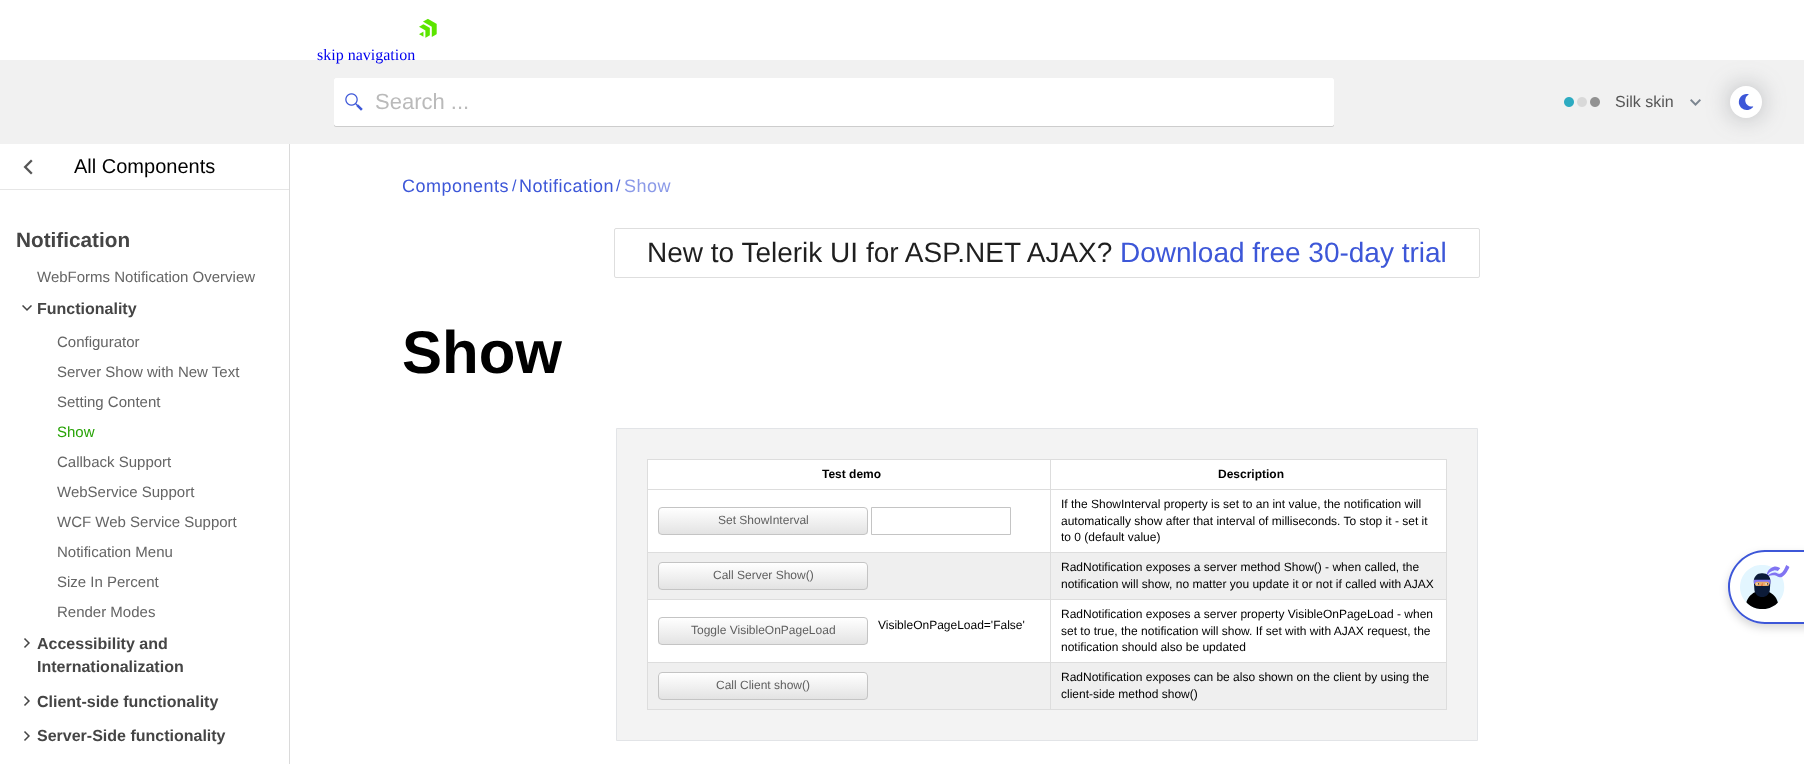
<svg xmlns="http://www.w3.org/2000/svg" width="1804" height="764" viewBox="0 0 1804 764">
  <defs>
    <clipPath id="clip1"><rect x="658" y="507" width="210" height="28" rx="4"/></clipPath>
    <linearGradient id="g1" gradientUnits="userSpaceOnUse" x1="763" y1="508" x2="763" y2="534"><stop offset="0" stop-color="#fff"/><stop offset="1" stop-color="#e3e3e3"/></linearGradient>
    <clipPath id="clip2"><rect x="658" y="562" width="210" height="28" rx="4"/></clipPath>
    <linearGradient id="g2" gradientUnits="userSpaceOnUse" x1="763" y1="563" x2="763" y2="589"><stop offset="0" stop-color="#fff"/><stop offset="1" stop-color="#e3e3e3"/></linearGradient>
    <clipPath id="clip3"><rect x="658" y="617" width="210" height="28" rx="4"/></clipPath>
    <linearGradient id="g3" gradientUnits="userSpaceOnUse" x1="763" y1="618" x2="763" y2="644"><stop offset="0" stop-color="#fff"/><stop offset="1" stop-color="#e3e3e3"/></linearGradient>
    <clipPath id="clip4"><rect x="658" y="672" width="210" height="28" rx="4"/></clipPath>
    <linearGradient id="g4" gradientUnits="userSpaceOnUse" x1="763" y1="673" x2="763" y2="699"><stop offset="0" stop-color="#fff"/><stop offset="1" stop-color="#e3e3e3"/></linearGradient>
  </defs>
  <rect width="100%" height="100%" fill="#fff"/>
  <image x="419" y="18" width="18" height="20" href="img/1.png"/>
  <path d="M0 60h1804v84H0z" fill="#f1f1f1"/>
  <rect x="334" y="79" width="1000" height="48" rx="2" fill="#00000026" filter="blur(0.5px)"/>
  <rect x="334.5" y="78.5" width="999" height="47" rx="1.5" fill="#fff" stroke="#fff"/>
  <image x="345" y="93" width="18" height="18" href="img/2.png"/>
  <image x="1564" y="97" width="36" height="10" href="img/3.png"/>
  <rect x="1730" y="86" width="32" height="32" rx="16" fill="#5a5e6666" filter="blur(12px)"/>
  <image x="1690" y="99" width="11" height="7" href="img/4.png"/>
  <circle cx="1746" cy="102" r="16" fill="#fff"/>
  <image x="1738" y="94" width="16" height="16" href="img/5.png"/>
  <path d="M289 144h1v620H289z" fill="#dadada"/>
  <path d="M0 189h289v1H0z" fill="#e6e6e6"/>
  <image x="23" y="159" width="10" height="16" href="img/6.png"/>
  <image x="22" y="305" width="10" height="6" href="img/7.png"/>
  <image x="24" y="638" width="6" height="10" href="img/8.png"/>
  <image x="24" y="696" width="6" height="10" href="img/8.png"/>
  <image x="24" y="731" width="6" height="10" href="img/8.png"/>
  <rect x="614.5" y="228.5" width="865" height="49" rx="1.5" fill="none" stroke="#dedede"/>
  <path d="M616.5 428.5h861v312H616.5z" fill="#f3f3f3" stroke="#e2e4e7"/>
  <path d="M648 460h798v29H648z" fill="#fff"/>
  <path d="M1050 459h397v1H1050z" fill="#ddd"/>
  <path d="M1050 489h397v1H1050z" fill="#ddd"/>
  <path d="M648 490h798v62H648z" fill="#fff"/>
  <path d="M1050 552h397v1H1050z" fill="#ddd"/>
  <path d="M648 553h798v46H648z" fill="#efefef"/>
  <path d="M1050 599h397v1H1050z" fill="#ddd"/>
  <path d="M648 600h798v62H648z" fill="#fff"/>
  <path d="M1050 662h397v1H1050z" fill="#ddd"/>
  <path d="M648 663h798v46H648z" fill="#efefef"/>
  <path d="M1446 662h1v48H1446z" fill="#ddd"/>
  <path d="M1050 709h397v1H1050z" fill="#ddd"/>
  <path d="M1050 662h1v48H1050z" fill="#ddd"/>
  <path d="M647 662h404v1H647z" fill="#ddd"/>
  <path d="M1050 599h1v64H1050z" fill="#ddd"/>
  <path d="M647 599h404v1H647z" fill="#ddd"/>
  <path d="M1050 552h1v48H1050z" fill="#ddd"/>
  <path d="M647 552h404v1H647z" fill="#ddd"/>
  <path d="M1050 489h1v64H1050z" fill="#ddd"/>
  <path d="M647 489h404v1H647z" fill="#ddd"/>
  <path d="M1050 459h1v31H1050z" fill="#ddd"/>
  <path d="M647 459h404v1H647z" fill="#ddd"/>
  <path d="M647 709h404v1H647z" fill="#ddd"/>
  <path d="M647 662h1v48H647z" fill="#ddd"/>
  <path d="M647 599h1v64H647z" fill="#ddd"/>
  <path d="M647 552h1v48H647z" fill="#ddd"/>
  <path d="M647 489h1v64H647z" fill="#ddd"/>
  <path d="M647 459h1v31H647z" fill="#ddd"/>
  <path d="M1446 599h1v64H1446z" fill="#ddd"/>
  <path d="M1446 552h1v48H1446z" fill="#ddd"/>
  <path d="M1446 489h1v64H1446z" fill="#ddd"/>
  <path d="M1446 459h1v31H1446z" fill="#ddd"/>
  <g clip-path="url(#clip1)">
    <path d="M658 508h210v26H658z" fill="url(#g1)"/>
  </g>
  <rect x="658.5" y="507.5" width="209" height="27" rx="3.5" fill="none" stroke="#c4c4c4"/>
  <path d="M871.5 507.5h139v27H871.5z" fill="none" stroke="#c4c4c4"/>
  <g clip-path="url(#clip2)">
    <path d="M658 563h210v26H658z" fill="url(#g2)"/>
  </g>
  <rect x="658.5" y="562.5" width="209" height="27" rx="3.5" fill="none" stroke="#c4c4c4"/>
  <g clip-path="url(#clip3)">
    <path d="M658 618h210v26H658z" fill="url(#g3)"/>
  </g>
  <rect x="658.5" y="617.5" width="209" height="27" rx="3.5" fill="none" stroke="#c4c4c4"/>
  <g clip-path="url(#clip4)">
    <path d="M658 673h210v26H658z" fill="url(#g4)"/>
  </g>
  <rect x="658.5" y="672.5" width="209" height="27" rx="3.5" fill="none" stroke="#c4c4c4"/>
  <rect x="1728" y="554" width="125" height="74" rx="37" fill="#00000029" filter="blur(4px)"/>
  <path d="M1765 550H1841V624H1765C1744.5 624 1728 607.5 1728 587C1728 566.5 1744.5 550 1765 550Z" fill="#fff"/>
  <path d="M1765 550H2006V624H1765C1745 624 1728 607 1728 587C1728 567 1745 550 1765 550ZM1765 552H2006V622H1765C1746 622 1730 606 1730 587C1730 568 1746 552 1765 552Z" fill="#3d57d8" fill-rule="evenodd"/>
  <image x="1740" y="565" width="50" height="44" href="img/9.png"/>
  <text x="317" y="60" font-family="Liberation Serif" font-size="16" fill="#00e">skip navigation</text>
  <text x="375" y="109" font-family="Liberation Sans" font-size="22" fill="#bababa">Search ...</text>
  <text x="1615" y="107" font-family="Liberation Sans" font-size="16" fill="#555">Silk skin</text>
  <text x="74" y="173" font-family="Liberation Sans" font-size="20" fill="#000">All Components</text>
  <text x="16" y="247" font-family="Liberation Sans" font-size="20.75" font-weight="bold" fill="#454545">Notification</text>
  <text x="37" y="282" font-family="Liberation Sans" font-size="15" fill="#656565">WebForms Notification Overview</text>
  <text x="37" y="314" font-family="Liberation Sans" font-size="16" font-weight="bold" fill="#454545">Functionality</text>
  <g font-family="Liberation Sans" font-size="15" fill="#656565">
    <text x="57" y="347">Configurator</text>
    <text x="57" y="377">Server Show with New Text</text>
    <text x="57" y="407">Setting Content</text>
  </g>
  <text x="57" y="437" font-family="Liberation Sans" font-size="15" fill="#27a306">Show</text>
  <g font-family="Liberation Sans" font-size="15" fill="#656565">
    <text x="57" y="467">Callback Support</text>
    <text x="57" y="497">WebService Support</text>
    <text x="57" y="527">WCF Web Service Support</text>
    <text x="57" y="557">Notification Menu</text>
    <text x="57" y="587">Size In Percent</text>
    <text x="57" y="617">Render Modes</text>
  </g>
  <g font-family="Liberation Sans" font-size="16" font-weight="bold" fill="#454545">
    <text x="37" y="649">Accessibility and</text>
    <text x="37" y="672">Internationalization</text>
    <text x="37" y="707">Client-side functionality</text>
    <text x="37" y="741">Server-Side functionality</text>
  </g>
  <text x="402" y="192" font-family="Liberation Sans" font-size="18" letter-spacing="0.5" fill="#3d57d8">Components</text>
  <text x="512" y="191" font-family="Liberation Sans" font-size="16" fill="#3d57d8">/</text>
  <text x="519" y="192" font-family="Liberation Sans" font-size="18" letter-spacing="0.5" fill="#3d57d8">Notification</text>
  <text x="616" y="191" font-family="Liberation Sans" font-size="16" fill="#3d57d8">/</text>
  <text x="624" y="192" font-family="Liberation Sans" font-size="18" letter-spacing="0.5" fill="#8b9ae8">Show</text>
  <text x="647" y="262" font-family="Liberation Sans" font-size="28" fill="#1f1f1f">New to Telerik UI for ASP.NET AJAX?</text>
  <text x="1120" y="262" font-family="Liberation Sans" font-size="28" fill="#3d57d8">Download free 30-day trial</text>
  <text x="402" y="373" font-family="Liberation Sans" font-size="60" font-weight="bold" fill="#000">Show</text>
  <g font-family="Liberation Sans" font-size="12" font-weight="bold" fill="#000">
    <text x="822" y="478">Test demo</text>
    <text x="1218" y="478">Description</text>
  </g>
  <text x="718" y="524" font-family="Liberation Sans" font-size="12" fill="#5f5f5f">Set ShowInterval</text>
  <g font-family="Liberation Sans" font-size="12" fill="#000">
    <text x="1061" y="508">If the ShowInterval property is set to an int value, the notification will</text>
    <text x="1061" y="525">automatically show after that interval of milliseconds. To stop it - set it</text>
    <text x="1061" y="541">to 0 (default value)</text>
  </g>
  <text x="713" y="579" font-family="Liberation Sans" font-size="12" fill="#5f5f5f">Call Server Show()</text>
  <g font-family="Liberation Sans" font-size="12" fill="#000">
    <text x="1061" y="571">RadNotification exposes a server method Show() - when called, the</text>
    <text x="1061" y="588">notification will show, no matter you update it or not if called with AJAX</text>
  </g>
  <text x="691" y="634" font-family="Liberation Sans" font-size="12" fill="#5f5f5f">Toggle VisibleOnPageLoad</text>
  <g font-family="Liberation Sans" font-size="12" fill="#000">
    <text x="878" y="629">VisibleOnPageLoad='False'</text>
    <text x="1061" y="618">RadNotification exposes a server property VisibleOnPageLoad - when</text>
    <text x="1061" y="635">set to true, the notification will show. If set with with AJAX request, the</text>
    <text x="1061" y="651">notification should also be updated</text>
  </g>
  <text x="716" y="689" font-family="Liberation Sans" font-size="12" fill="#5f5f5f">Call Client show()</text>
  <g font-family="Liberation Sans" font-size="12" fill="#000">
    <text x="1061" y="681">RadNotification exposes can be also shown on the client by using the</text>
    <text x="1061" y="698">client-side method show()</text>
  </g>
</svg>
